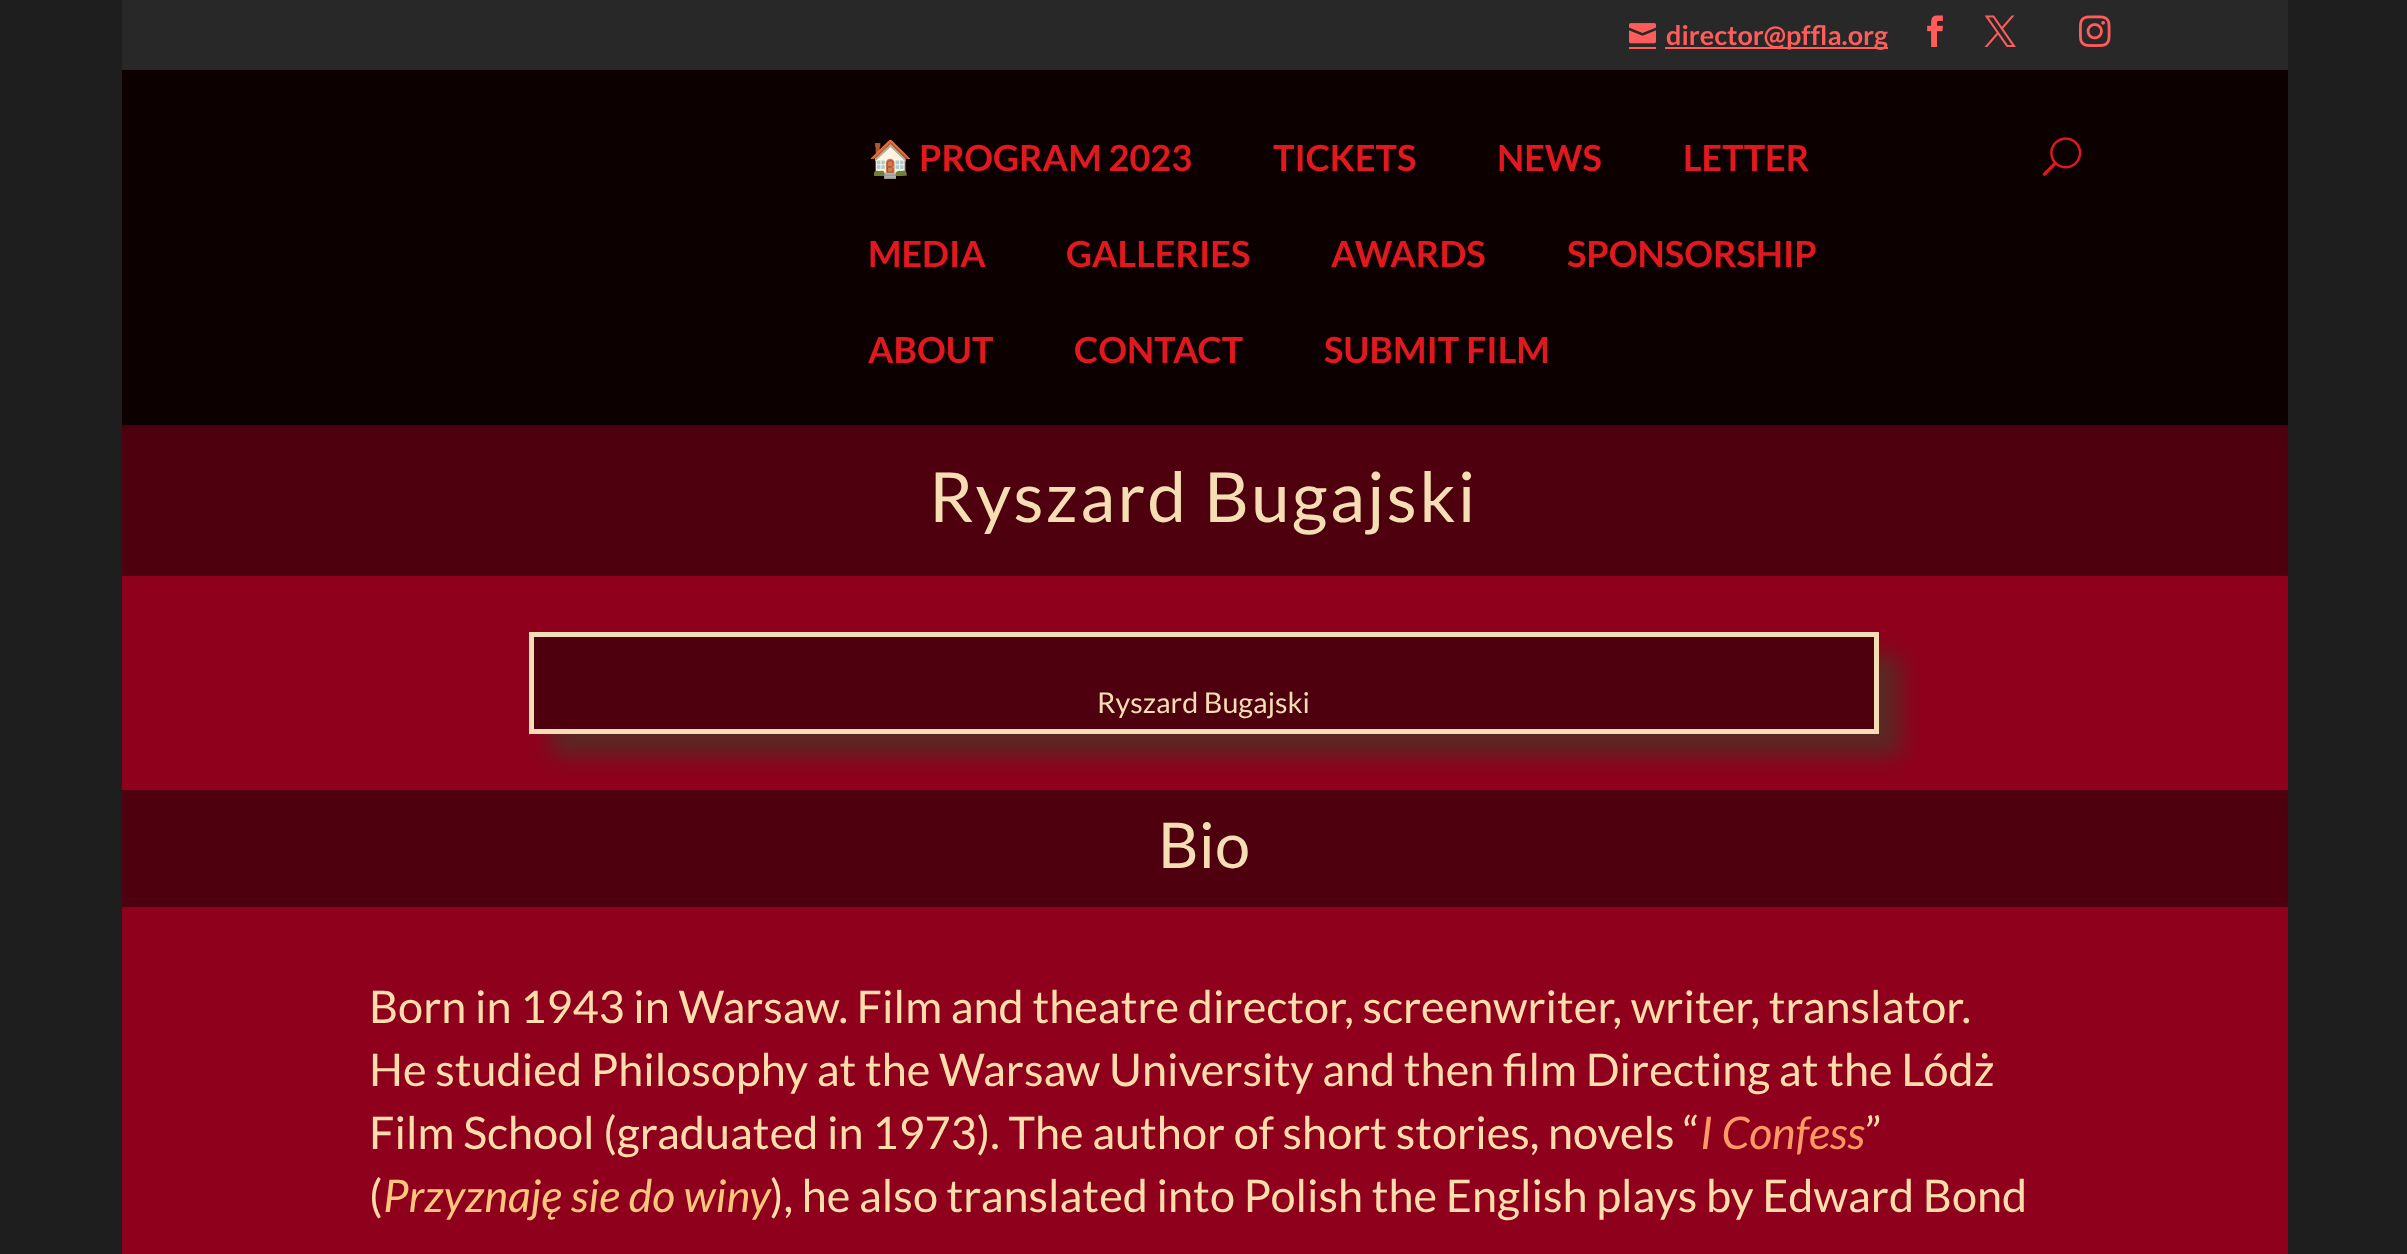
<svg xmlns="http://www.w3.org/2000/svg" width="2407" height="1254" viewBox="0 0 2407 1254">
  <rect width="100%" height="100%" fill="#1e1e1e"/>
  <path d="M122 0h2166v70H122z" fill="#282828"/>
  <image x="1629" y="23" width="27" height="21" href="img/1.png"/>
  <path d="M1629 47h27v2H1629z" fill="#ff5c5c"/>
  <path d="M1665 47h223v2H1665z" fill="#ff5c5c"/>
  <image x="1927" y="15" width="16" height="32" href="img/2.png"/>
  <image x="1984" y="15" width="32" height="32" href="img/3.png"/>
  <image x="2079" y="15" width="32" height="32" href="img/4.png"/>
  <path d="M122 425h2166v3H122z" fill="#46000d"/>
  <path d="M122 70h2166v355H122z" fill="#0c0000"/>
  <image x="2042" y="137" width="40" height="39" href="img/5.png"/>
  <path d="M122 428h2166v479H122z" fill="#4e000e"/>
  <path d="M122 576h2166v214H122z" fill="#8f001c"/>
  <path d="M551 655h1350v101H551z" fill="#592823" filter="blur(11px)"/>
  <path d="M531.5 634.5h1345v97H531.5z" fill="#4e000e" stroke="#f5deb3" stroke-width="5"/>
  <path d="M122 907h2166v347H122z" fill="#8f001c"/>
  <text x="1666" y="45" font-family="Lato" font-size="27" font-weight="bold" fill="#ff5c5c">director@pffla.org</text>
  <text x="868" y="171" font-family="Noto Color Emoji" font-size="36" font-weight="bold" fill="#e1191e">🏠</text>
  <g font-family="Lato" font-size="36" font-weight="bold" fill="#e1191e">
    <text x="919" y="171">PROGRAM 2023</text>
    <text x="1273" y="171">TICKETS</text>
    <text x="1497" y="171">NEWS</text>
    <text x="1683" y="171">LETTER</text>
    <text x="868" y="267">MEDIA</text>
    <text x="1066" y="267">GALLERIES</text>
    <text x="1331" y="267">AWARDS</text>
    <text x="1567" y="267">SPONSORSHIP</text>
    <text x="868" y="363">ABOUT</text>
    <text x="1074" y="363">CONTACT</text>
    <text x="1324" y="363">SUBMIT FILM</text>
  </g>
  <text x="929" y="522" font-family="Lato" font-size="69.25" letter-spacing="2.25" fill="#f5deb3">Ryszard Bugajski</text>
  <text x="1097" y="713" font-family="Lato" font-size="28.75" fill="#f5deb3">Ryszard Bugajski</text>
  <text x="1158" y="868" font-family="Lato" font-size="63" fill="#f5deb3">Bio</text>
  <g font-family="Lato" font-size="45" fill="#ffdead">
    <text x="369" y="1023">Born in 1943 in Warsaw. Film and theatre director, screenwriter, writer, translator.</text>
    <text x="369" y="1086">He studied Philosophy at the Warsaw University and then film Directing at the Lódż</text>
    <text x="369" y="1149">Film School (graduated in 1973). The author of short stories, novels “</text>
  </g>
  <text x="1700" y="1149" font-family="Lato" font-size="45" font-style="italic" fill="#f96">I Confess</text>
  <g font-family="Lato" font-size="45" fill="#ffdead">
    <text x="1865" y="1149">”</text>
    <text x="369" y="1212">(</text>
  </g>
  <text x="383" y="1212" font-family="Lato" font-size="45" font-style="italic" fill="#ffc67e">Przyznaję sie do winy</text>
  <text x="770" y="1212" font-family="Lato" font-size="45" fill="#ffdead">), he also translated into Polish the English plays by Edward Bond</text>
</svg>
